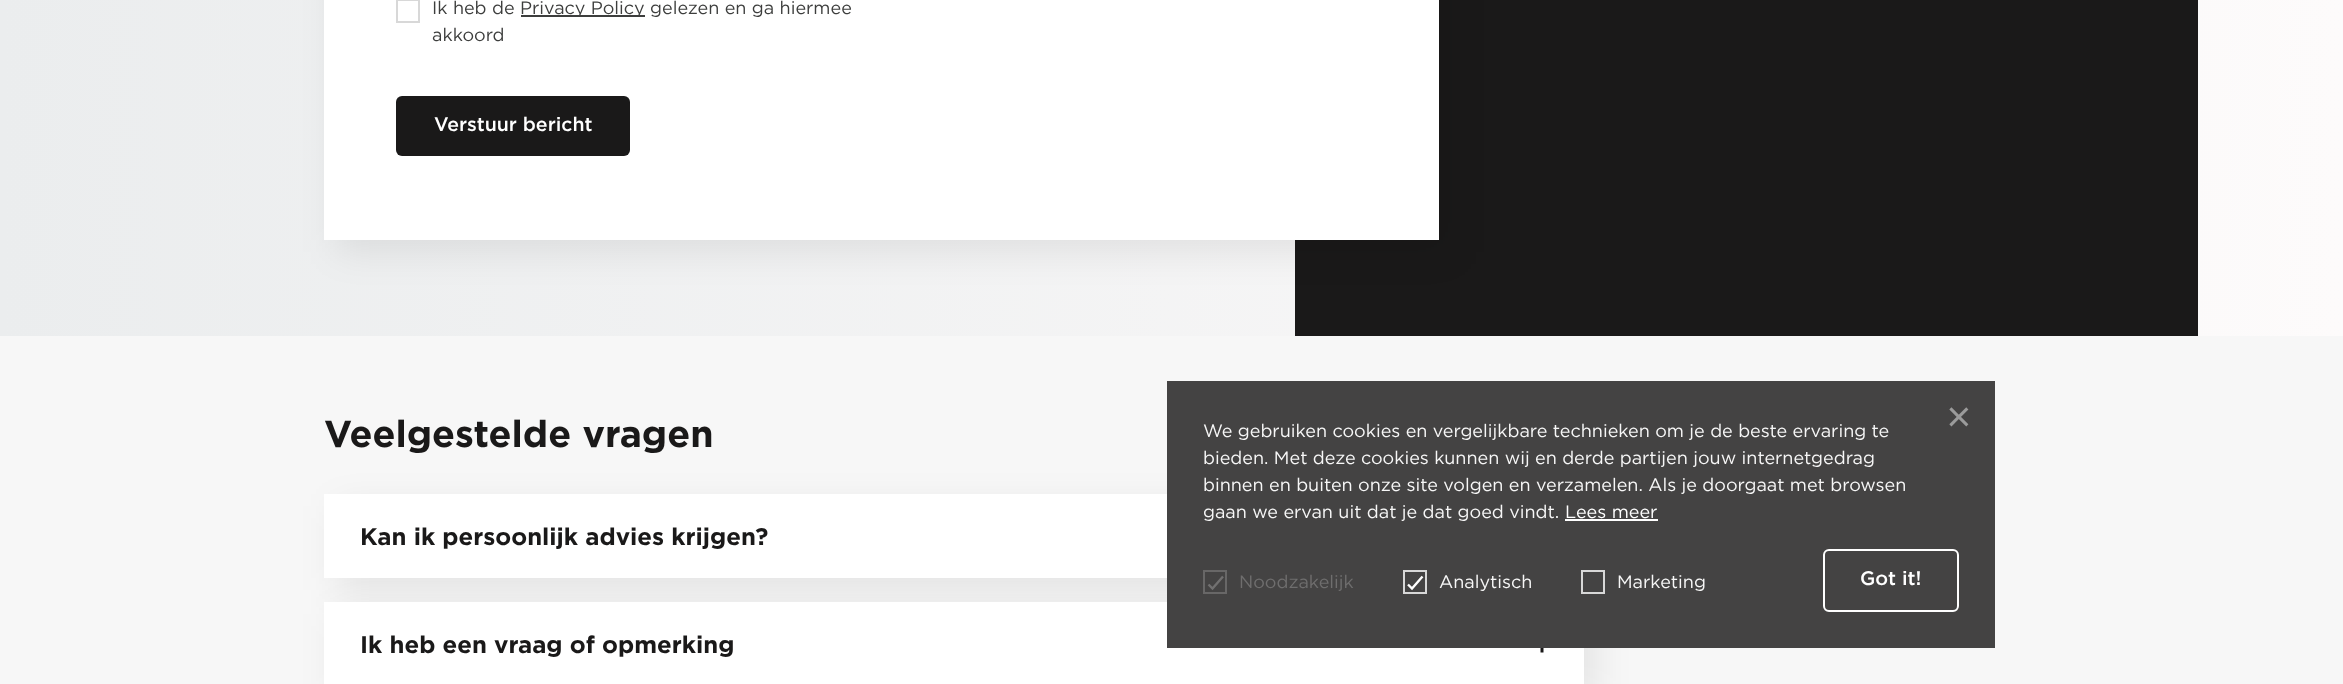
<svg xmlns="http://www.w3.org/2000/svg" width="2343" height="684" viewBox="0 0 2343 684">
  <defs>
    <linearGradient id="g1" gradientUnits="userSpaceOnUse" x1="2343" y1="3" x2="0" y2="3"><stop offset="0" stop-color="#fdfbfb"/><stop offset="1" stop-color="#ebedee"/></linearGradient>
  </defs>
  <rect width="100%" height="100%" fill="#fff"/>
  <path d="M0 0h2343v336H0z" fill="url(#g1)"/>
  <path d="M1295 0h903v336H1295z" fill="#1a1919"/>
  <path d="M336 -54h1115v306H336z" fill="#00000014" filter="blur(18px)"/>
  <path d="M324 0h1115v240H324z" fill="#fff"/>
  <path d="M397 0h22v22H397z" fill="none" stroke="#d8d8d8" stroke-width="2"/>
  <path d="M521 15h124v2H521z" fill="#3d3e3d"/>
  <rect x="396" y="96" width="234" height="60" rx="6" fill="#1a1919"/>
  <path d="M0 336h2343v348H0z" fill="#f7f7f7"/>
  <path d="M336 506h1260v84H336z" fill="#00000014" filter="blur(18px)"/>
  <path d="M324 494h843v84H324z" fill="#fff"/>
  <path d="M336 614h1260v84H336z" fill="#00000014" filter="blur(18px)"/>
  <path d="M324 602h1260v82H324z" fill="#fff"/>
  <path d="M1542 636V651" fill="none" stroke="#1a1919" stroke-width="3" stroke-linecap="square"/>
  <path d="M1167 381h828v267H1167z" fill="#444343"/>
  <image x="1949" y="407" width="20" height="20" href="img/1.png"/>
  <path d="M1565 519h93v2H1565z" fill="#fff"/>
  <path d="M1204 571h22v22H1204z" fill="none" stroke="#686767" stroke-width="2"/>
  <path d="M1208.5 584.5L1212.5 588.5L1223 576.5" fill="none" stroke="#717070" stroke-width="2.4"/>
  <path d="M1404 571h22v22H1404z" fill="none" stroke="#d8d8d8" stroke-width="2"/>
  <path d="M1408 584.5L1412 588.5L1422.5 576.5" fill="none" stroke="#fff" stroke-width="2.4"/>
  <path d="M1582 571h22v22H1582z" fill="none" stroke="#d8d8d8" stroke-width="2"/>
  <rect x="1824" y="550" width="134" height="61" rx="5" fill="none" stroke="#fff" stroke-width="2"/>
  <g font-family="Gotham" font-size="18" fill="#3d3e3d">
    <text x="432" y="14">Ik heb de</text>
    <text x="520" y="14">Privacy Policy gelezen en ga hiermee</text>
    <text x="432" y="41">akkoord</text>
  </g>
  <text x="434" y="131" font-family="Gotham" font-size="19.5" font-weight="500" fill="#fff">Verstuur bericht</text>
  <text x="324" y="447" font-family="Gotham" font-size="37.5" font-weight="bold" fill="#1a1919">Veelgestelde vragen</text>
  <g font-family="Gotham" font-size="24" font-weight="bold" fill="#1a1919">
    <text x="360" y="545">Kan ik persoonlijk advies krijgen?</text>
    <text x="360" y="653">Ik heb een vraag of opmerking</text>
  </g>
  <g font-family="Gotham" font-size="18" fill="#f7f7f7">
    <text x="1203" y="437">We gebruiken cookies en vergelijkbare technieken om je de beste ervaring te</text>
    <text x="1203" y="464">bieden. Met deze cookies kunnen wij en derde partijen jouw internetgedrag</text>
    <text x="1203" y="491">binnen en buiten onze site volgen en verzamelen. Als je doorgaat met browsen</text>
    <text x="1203" y="518">gaan we ervan uit dat je dat goed vindt.</text>
  </g>
  <text x="1565" y="518" font-family="Gotham" font-size="18" fill="#fff">Lees meer</text>
  <text x="1239" y="588" font-family="Gotham" font-size="18" fill="#6f6e6e">Noodzakelijk</text>
  <g font-family="Gotham" font-size="18" fill="#f7f7f7">
    <text x="1439" y="588">Analytisch</text>
    <text x="1617" y="588">Marketing</text>
  </g>
  <text x="1860" y="585" font-family="Gotham" font-size="19.5" font-weight="500" fill="#fff">Got it!</text>
</svg>
